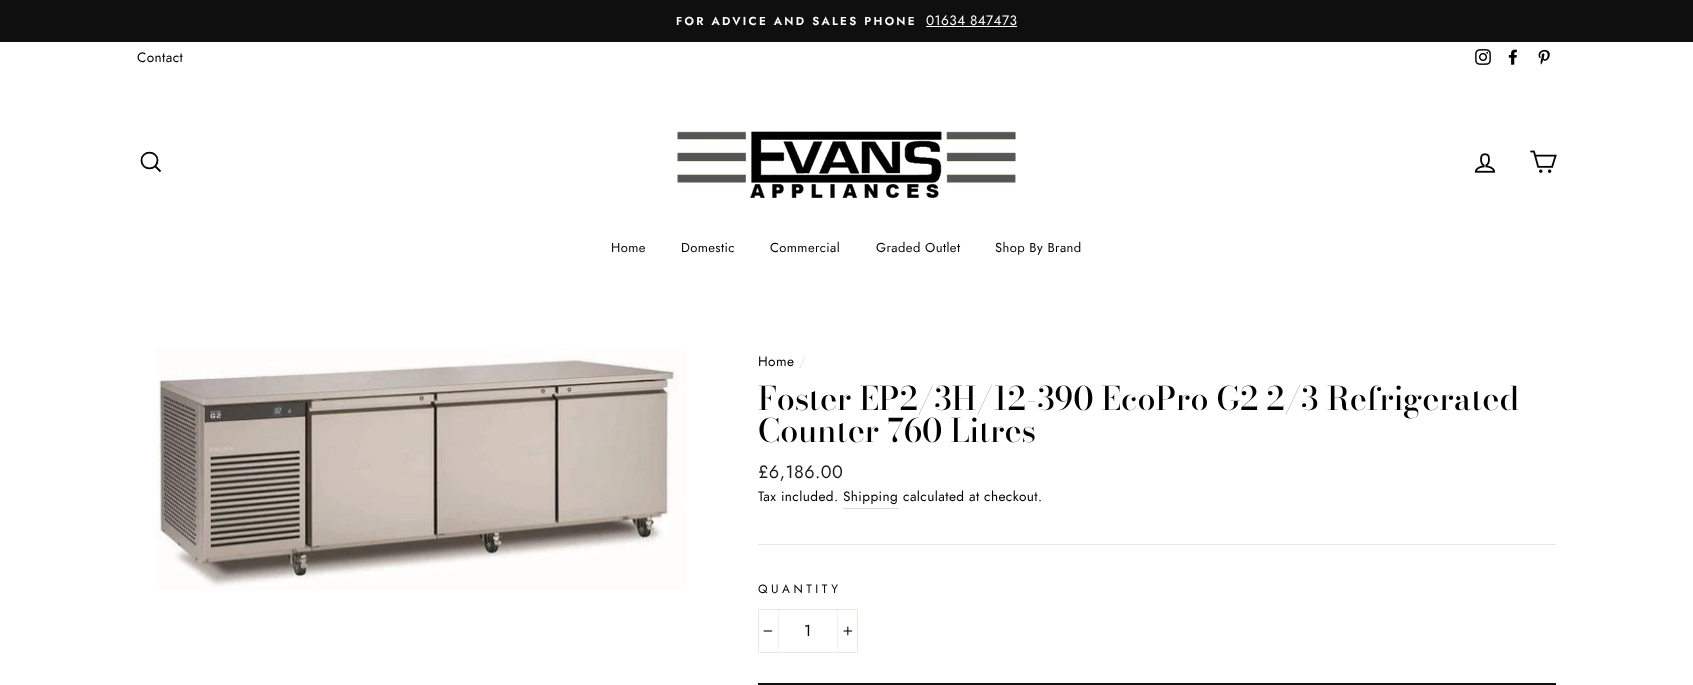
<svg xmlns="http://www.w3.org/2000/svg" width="1693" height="685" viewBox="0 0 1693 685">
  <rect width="100%" height="100%" fill="#fff"/>
  <path d="M0 0h1693v42H0z" fill="#0f0f0f"/>
  <path d="M926 26h91v1H926z" fill="#fff"/>
  <image x="1475" y="49" width="16" height="16" href="img/1.png"/>
  <image x="1508" y="49" width="9" height="16" href="img/2.png"/>
  <image x="1538" y="49" width="12" height="16" href="img/3.png"/>
  <path d="M157.5 160.5C157.5 171 141.5 171 141.5 160.5C141.5 150 157.5 150 157.5 160.5ZM160.5 171.5L155.5 166.5" fill="none" stroke="#000" stroke-width="1.8"/>
  <image x="677" y="131" width="339" height="67" href="img/4.png"/>
  <image x="1474" y="153" width="22" height="20" href="img/5.png"/>
  <image x="1530" y="150" width="27" height="23" href="img/6.png"/>
  <image x="154" y="349" width="533" height="242" href="img/7.png"/>
  <path d="M843 508h56v1H843z" fill="#d9d9d9"/>
  <path d="M758 544h798v1H758z" fill="#e8e8e1"/>
  <path d="M758.5 609.5h99v43H758.5z" fill="none" stroke="#e8e8e1"/>
  <path d="M778 609h1v44H778z" fill="#f2f2f2"/>
  <image x="763" y="630" width="10" height="2" href="img/8.png"/>
  <path d="M837 609h1v44H837z" fill="#f2f2f2"/>
  <image x="843" y="626" width="10" height="10" href="img/9.png"/>
  <path d="M758 683h798v2H758z" fill="#111"/>
  <text x="676" y="25" font-family="Jost" font-size="11.6" font-weight="600" letter-spacing="2.3" fill="#fff">FOR ADVICE AND SALES PHONE</text>
  <text x="926" y="25" font-family="Jost" font-size="13.6" letter-spacing="0.4" fill="#fff">01634 847473</text>
  <text x="137" y="62" font-family="Jost" font-size="13.6" letter-spacing="0.4" fill="#000">Contact</text>
  <g font-family="Jost" font-size="13" letter-spacing="0.4" fill="#000">
    <text x="611" y="252">Home</text>
    <text x="681" y="252">Domestic</text>
    <text x="770" y="252">Commercial</text>
    <text x="876" y="252">Graded Outlet</text>
    <text x="995" y="252">Shop By Brand</text>
  </g>
  <text x="758" y="366" font-family="Jost" font-size="13.6" letter-spacing="0.4" fill="#000">Home</text>
  <text x="799" y="366" font-family="Jost" font-size="13.6" letter-spacing="0.4" fill="#e8e8e1">/</text>
  <g font-family="Bodoni Moda" font-size="32.3" font-weight="500" fill="#000">
    <text x="758" y="410">Foster EP2/3H/12-390 EcoPro G2 2/3 Refrigerated</text>
    <text x="758" y="442">Counter 760 Litres</text>
  </g>
  <text x="758" y="478" font-family="Jost" font-size="18" letter-spacing="0.4" fill="#1c1d1d">£6,186.00</text>
  <g font-family="Jost" font-size="13.6" letter-spacing="0.4" fill="#000">
    <text x="758" y="501">Tax included. Shipping</text>
    <text x="903" y="501">calculated at checkout.</text>
  </g>
  <text x="758" y="593" font-family="Jost" font-size="12" letter-spacing="3.5" fill="#000">QUANTITY</text>
  <text x="804" y="636" font-family="Jost" font-size="16" letter-spacing="0.4" fill="#000">1</text>
</svg>
